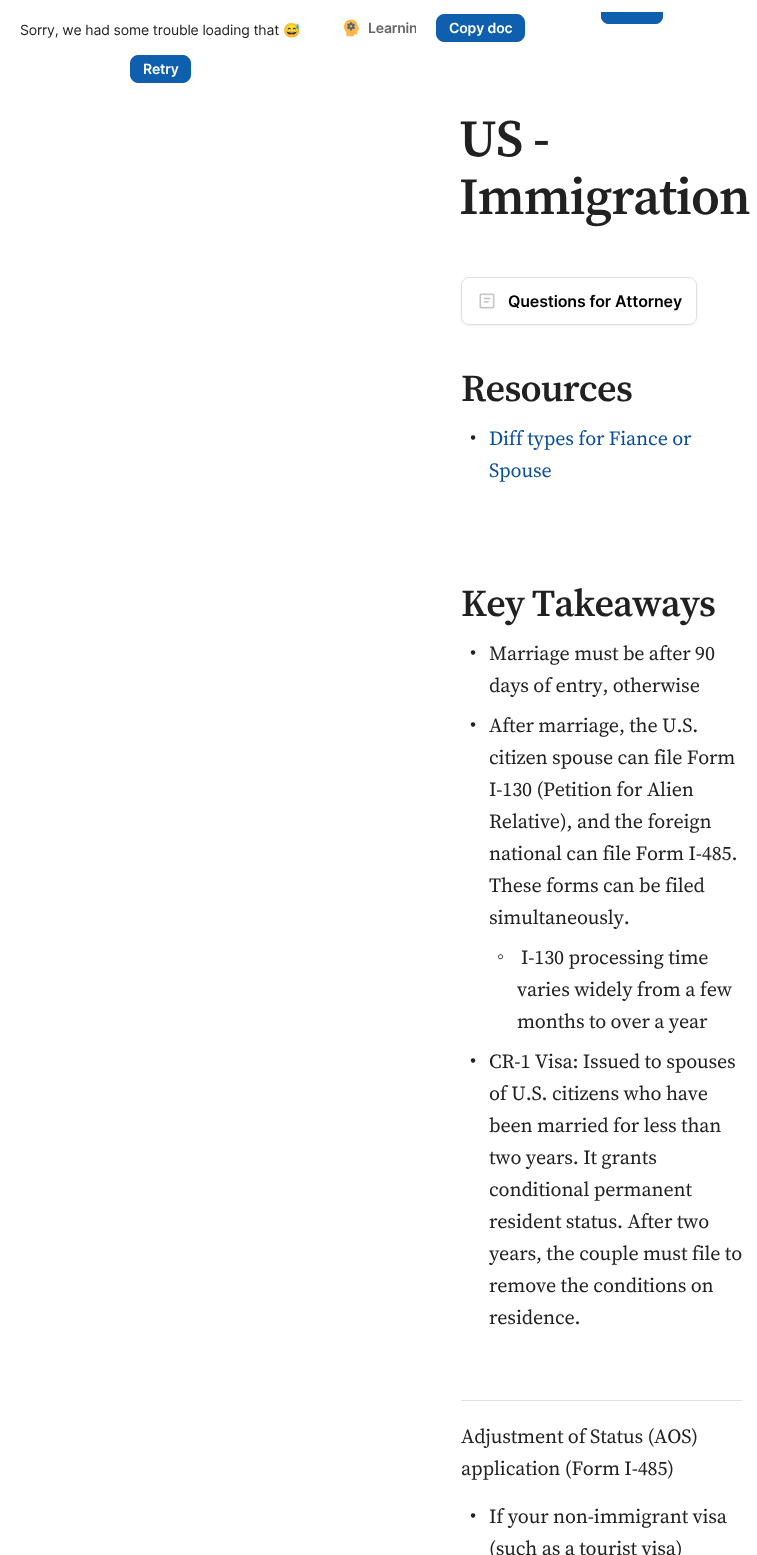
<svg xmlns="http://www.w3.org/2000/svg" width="757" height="1555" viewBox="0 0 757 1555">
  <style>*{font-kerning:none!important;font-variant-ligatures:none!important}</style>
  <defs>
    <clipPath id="clip1"><path d="M416 12h323v32H416z"/></clipPath>
    <clipPath id="clip2"><path d="M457 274H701V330H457ZM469 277H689C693.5 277 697 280.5 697 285V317C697 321.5 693.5 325 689 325H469C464.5 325 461 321.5 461 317V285C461 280.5 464.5 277 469 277Z" clip-rule="evenodd"/></clipPath>
    <clipPath id="clip3"><path d="M321 12h95v32H321z"/></clipPath>
  </defs>
  <rect width="100%" height="100%" fill="#fff"/>
  <rect x="130.5" y="55.5" width="60" height="27" rx="7.5" fill="#0f5faf" stroke="#0f5faf"/>
  <image x="343" y="19" width="17" height="18" href="img/1.png"/>
  <path d="M601 12H663V16C663 20.5 659.5 24 655 24H609C604.5 24 601 20.5 601 16Z" fill="#0f5faf"/>
  <g clip-path="url(#clip1)">
    <rect x="601.5" y="-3.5" width="61" height="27" rx="7.5" fill="none" stroke="#0f5faf"/>
  </g>
  <rect x="436.5" y="14.5" width="88" height="27" rx="7.5" fill="#0f5faf" stroke="#0f5faf"/>
  <g clip-path="url(#clip2)">
    <rect x="461" y="278" width="236" height="48" rx="8" fill="#0000000f" filter="blur(1px)"/>
  </g>
  <rect x="461.5" y="277.5" width="235" height="47" rx="7.5" fill="none" stroke="#e0e0e0"/>
  <image x="479" y="293" width="16" height="16" href="img/2.png"/>
  <path d="M461 1400h281v1H461z" fill="#e0e0e0"/>
  <text x="20" y="35" font-family="Inter" font-size="14" letter-spacing="-0.15" fill="#212121">Sorry, we had some trouble loading that</text>
  <text x="283" y="35" font-family="Noto Color Emoji" font-size="14" letter-spacing="-0.15" fill="#212121">😅</text>
  <text x="143" y="74" font-family="Inter" font-size="14" font-weight="600" letter-spacing="-0.15" fill="#fff">Retry</text>
  <g clip-path="url(#clip3)">
    <text x="368" y="33" font-family="Inter" font-size="14" font-weight="600" letter-spacing="-0.15" fill="#666">Learnin</text>
  </g>
  <text x="449" y="33" font-family="Inter" font-size="14" font-weight="600" letter-spacing="-0.15" fill="#fff">Copy doc</text>
  <g font-family="'Source Serif 4'" font-size="52" font-weight="600" letter-spacing="-1" fill="#212121">
    <text x="459" y="156">US -</text>
    <text x="459" y="214">Immigration</text>
  </g>
  <text x="508" y="307" font-family="Inter" font-size="16" font-weight="600" letter-spacing="-0.15" fill="#000">Questions for Attorney</text>
  <text x="461" y="401" font-family="'Source Serif 4'" font-size="38" font-weight="600" letter-spacing="-0.75" fill="#212121">Resources</text>
  <text x="470" y="444" font-family="'Source Serif 4'" font-size="20" letter-spacing="-0.15" fill="#212121">•</text>
  <g font-family="'Source Serif 4'" font-size="20" letter-spacing="-0.15" fill="#094e9b">
    <text x="489" y="445">Diff types for Fiance or</text>
    <text x="489" y="477">Spouse</text>
  </g>
  <text x="461" y="616" font-family="'Source Serif 4'" font-size="38" font-weight="600" letter-spacing="-0.75" fill="#212121">Key Takeaways</text>
  <g font-family="'Source Serif 4'" font-size="20" letter-spacing="-0.15" fill="#212121">
    <text x="470" y="659">•</text>
    <text x="489" y="660">Marriage must be after 90</text>
    <text x="489" y="692">days of entry, otherwise</text>
    <text x="470" y="731">•</text>
    <text x="489" y="732">After marriage, the U.S.</text>
    <text x="489" y="764">citizen spouse can file Form</text>
    <text x="489" y="796">I-130 (Petition for Alien</text>
    <text x="489" y="828">Relative), and the foreign</text>
    <text x="489" y="860">national can file Form I-485.</text>
    <text x="489" y="892">These forms can be filed</text>
    <text x="489" y="924">simultaneously.</text>
  </g>
  <text x="497" y="963" font-family="Liberation Serif" font-size="20" letter-spacing="-0.15" fill="#212121">◦</text>
  <g font-family="'Source Serif 4'" font-size="20" letter-spacing="-0.15" fill="#212121">
    <text x="521" y="964">I-130 processing time</text>
    <text x="517" y="996">varies widely from a few</text>
    <text x="517" y="1028">months to over a year</text>
    <text x="470" y="1067">•</text>
    <text x="489" y="1068">CR-1 Visa: Issued to spouses</text>
    <text x="489" y="1100">of U.S. citizens who have</text>
    <text x="489" y="1132">been married for less than</text>
    <text x="489" y="1164">two years. It grants</text>
    <text x="489" y="1196">conditional permanent</text>
    <text x="489" y="1228">resident status. After two</text>
    <text x="489" y="1260">years, the couple must file to</text>
    <text x="489" y="1292">remove the conditions on</text>
    <text x="489" y="1324">residence.</text>
    <text x="461" y="1443">Adjustment of Status (AOS)</text>
    <text x="461" y="1475">application (Form I-485)</text>
    <text x="470" y="1522">•</text>
    <text x="489" y="1523">If your non-immigrant visa</text>
    <text x="489" y="1555">(such as a tourist visa)</text>
  </g>
</svg>
